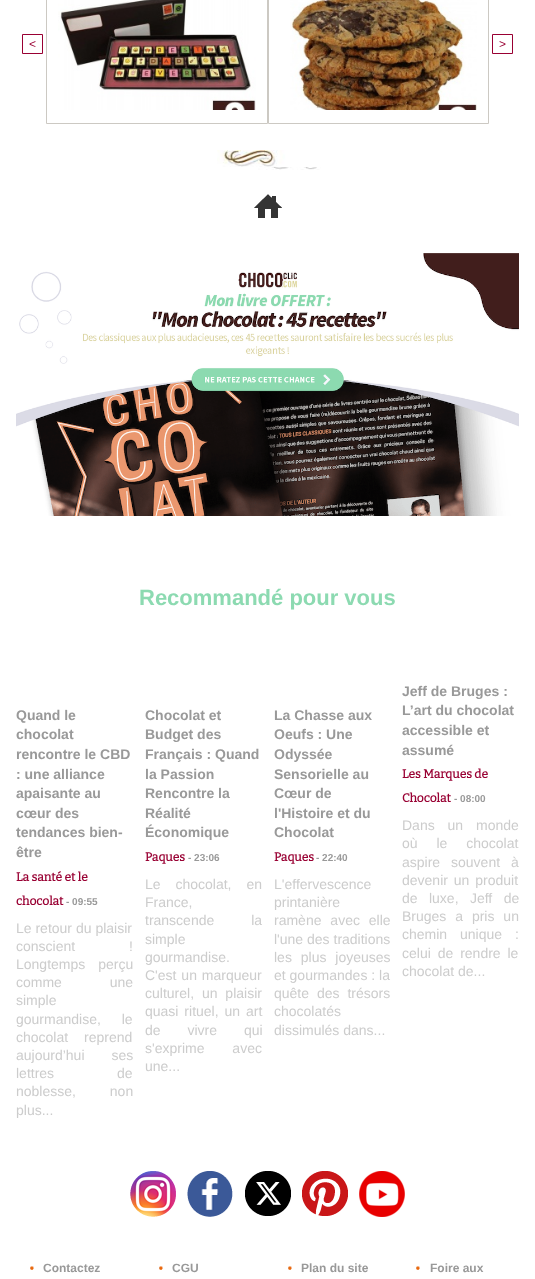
<svg xmlns="http://www.w3.org/2000/svg" width="535" height="1279" viewBox="0 0 535 1279">
  <rect width="100%" height="100%" fill="#fff"/>
  <path d="M22.5 34.5h20v19H22.5z" fill="none" stroke="#903"/>
  <image x="58" y="0" width="198" height="110" href="img/1.png"/>
  <path d="M46.5 -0.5h221v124H46.5z" fill="none" stroke="#ccc9c3"/>
  <image x="290" y="0" width="187" height="110" href="img/2.png"/>
  <path d="M268.5 -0.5h220v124H268.5z" fill="none" stroke="#ccc9c3"/>
  <path d="M492.5 34.5h20v19H492.5z" fill="none" stroke="#903"/>
  <image x="251" y="167" width="75" height="3" href="img/3.png"/>
  <image x="217" y="150" width="109" height="17" href="img/4.png"/>
  <image x="254" y="194" width="28" height="24" href="img/5.png"/>
  <image x="16" y="253" width="503" height="263" href="img/6.png"/>
  <image x="130" y="1171" width="46" height="46" href="img/7.png"/>
  <image x="187" y="1171" width="46" height="46" href="img/8.png"/>
  <image x="245" y="1171" width="46" height="45" href="img/9.png"/>
  <image x="302" y="1171" width="46" height="45" href="img/10.png"/>
  <image x="359" y="1171" width="46" height="46" href="img/11.png"/>
  <image x="30" y="1266" width="4" height="4" href="img/12.png"/>
  <image x="159" y="1266" width="4" height="4" href="img/12.png"/>
  <image x="288" y="1266" width="4" height="4" href="img/12.png"/>
  <image x="416" y="1266" width="4" height="4" href="img/12.png"/>
  <g font-family="Liberation Sans" font-size="12" fill="#903">
    <text x="29" y="48">&lt;</text>
    <text x="499" y="48">&gt;</text>
  </g>
  <text x="139" y="605" font-family="Liberation Sans" font-size="22" font-weight="bold" fill="#8cdab1">Recommandé pour vous</text>
  <g font-family="Liberation Sans" font-size="14" font-weight="bold" fill="#999">
    <text x="16" y="720">Quand le</text>
    <text x="16" y="739">chocolat</text>
    <text x="16" y="759">rencontre le CBD</text>
    <text x="16" y="779">: une alliance</text>
    <text x="16" y="798">apaisante au</text>
    <text x="16" y="818">cœur des</text>
    <text x="16" y="837">tendances bien-</text>
    <text x="16" y="857">être</text>
  </g>
  <g font-family="Bitter" font-size="12" font-weight="bold" fill="#903">
    <text x="16" y="881">La santé et le</text>
    <text x="16" y="905">chocolat</text>
  </g>
  <text x="66" y="905" font-family="Liberation Sans" font-size="10" font-weight="bold" fill="#999">- 09:55</text>
  <g font-family="Liberation Sans" font-size="14" fill="#ccc">
    <text x="16" y="933">Le retour du plaisir</text>
    <text x="16" y="951" word-spacing="50">conscient !</text>
    <text x="16" y="969" word-spacing="9">Longtemps perçu</text>
    <text x="16" y="987" word-spacing="44">comme une</text>
    <text x="16" y="1005">simple</text>
    <text x="16" y="1024" word-spacing="17">gourmandise, le</text>
    <text x="16" y="1042" word-spacing="12">chocolat reprend</text>
    <text x="16" y="1060" word-spacing="23">aujourd’hui ses</text>
    <text x="16" y="1078" word-spacing="59">lettres de</text>
    <text x="16" y="1096" word-spacing="30">noblesse, non</text>
    <text x="16" y="1115">plus...</text>
  </g>
  <g font-family="Liberation Sans" font-size="14" font-weight="bold" fill="#999">
    <text x="145" y="720">Chocolat et</text>
    <text x="145" y="739">Budget des</text>
    <text x="145" y="759">Français : Quand</text>
    <text x="145" y="779">la Passion</text>
    <text x="145" y="798">Rencontre la</text>
    <text x="145" y="818">Réalité</text>
    <text x="145" y="837">Économique</text>
  </g>
  <text x="145" y="861" font-family="Bitter" font-size="12" font-weight="bold" fill="#903">Paques</text>
  <text x="188" y="861" font-family="Liberation Sans" font-size="10" font-weight="bold" fill="#999">- 23:06</text>
  <g font-family="Liberation Sans" font-size="14" fill="#ccc">
    <text x="145" y="889" word-spacing="11">Le chocolat, en</text>
    <text x="145" y="907">France,</text>
    <text x="145" y="925" word-spacing="33">transcende la</text>
    <text x="145" y="944">simple</text>
    <text x="145" y="962">gourmandise.</text>
    <text x="145" y="980" word-spacing="1">C'est un marqueur</text>
    <text x="145" y="998" word-spacing="4">culturel, un plaisir</text>
    <text x="145" y="1016" word-spacing="2">quasi rituel, un art</text>
    <text x="145" y="1035" word-spacing="23">de vivre qui</text>
    <text x="145" y="1053" word-spacing="24">s'exprime avec</text>
    <text x="145" y="1071">une...</text>
  </g>
  <g font-family="Liberation Sans" font-size="14" font-weight="bold" fill="#999">
    <text x="274" y="720">La Chasse aux</text>
    <text x="274" y="739">Oeufs : Une</text>
    <text x="274" y="759">Odyssée</text>
    <text x="274" y="779">Sensorielle au</text>
    <text x="274" y="798">Cœur de</text>
    <text x="274" y="818">l'Histoire et du</text>
    <text x="274" y="837">Chocolat</text>
  </g>
  <text x="274" y="861" font-family="Bitter" font-size="12" font-weight="bold" fill="#903">Paques</text>
  <text x="316" y="861" font-family="Liberation Sans" font-size="10" font-weight="bold" fill="#999">- 22:40</text>
  <g font-family="Liberation Sans" font-size="14" fill="#ccc">
    <text x="274" y="889">L'effervescence</text>
    <text x="274" y="907">printanière</text>
    <text x="274" y="925" word-spacing="5">ramène avec elle</text>
    <text x="274" y="944">l'une des traditions</text>
    <text x="274" y="962" word-spacing="5">les plus joyeuses</text>
    <text x="274" y="980">et gourmandes : la</text>
    <text x="274" y="998" word-spacing="4">quête des trésors</text>
    <text x="274" y="1016">chocolatés</text>
    <text x="274" y="1035">dissimulés dans...</text>
  </g>
  <g font-family="Liberation Sans" font-size="14" font-weight="bold" fill="#999">
    <text x="402" y="696">Jeff de Bruges :</text>
    <text x="402" y="715">L’art du chocolat</text>
    <text x="402" y="735">accessible et</text>
    <text x="402" y="755">assumé</text>
  </g>
  <g font-family="Bitter" font-size="12" font-weight="bold" fill="#903">
    <text x="402" y="778">Les Marques de</text>
    <text x="402" y="802">Chocolat</text>
  </g>
  <text x="454" y="802" font-family="Liberation Sans" font-size="10" font-weight="bold" fill="#999">- 08:00</text>
  <g font-family="Liberation Sans" font-size="14" fill="#ccc">
    <text x="402" y="830" word-spacing="9">Dans un monde</text>
    <text x="402" y="848" word-spacing="15">où le chocolat</text>
    <text x="402" y="867" word-spacing="7">aspire souvent à</text>
    <text x="402" y="885" word-spacing="2">devenir un produit</text>
    <text x="402" y="903" word-spacing="7.5">de luxe, Jeff de</text>
    <text x="402" y="921" word-spacing="5">Bruges a pris un</text>
    <text x="402" y="939" word-spacing="9">chemin unique :</text>
    <text x="402" y="958" word-spacing="3">celui de rendre le</text>
    <text x="402" y="976">chocolat de...</text>
  </g>
  <g font-family="Liberation Sans" font-size="12" font-weight="bold" fill="#999">
    <text x="43" y="1272">Contactez</text>
    <text x="172" y="1272">CGU</text>
    <text x="301" y="1272">Plan du site</text>
    <text x="430" y="1272">Foire aux</text>
  </g>
</svg>
